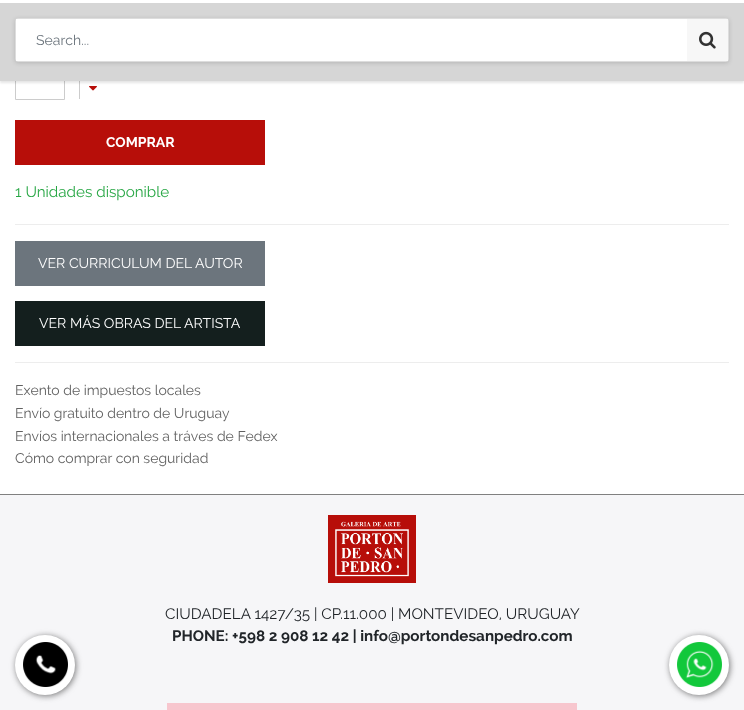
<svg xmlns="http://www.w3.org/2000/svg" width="744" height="710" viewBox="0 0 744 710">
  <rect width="100%" height="100%" fill="#fff"/>
  <path d="M15.5 55.5h49v44H15.5z" fill="none" stroke="#ccc"/>
  <path d="M79 99V77L80 78V99Z" fill="#00000033"/>
  <image x="89" y="86" width="8" height="5" href="img/2.png"/>
  <path d="M0 -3h744v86H0z" fill="#0000001a" filter="blur(1px)"/>
  <path d="M0 0h744v3H0z" fill="#fff"/>
  <path d="M0 3h744v78H0z" fill="#d6d6d6"/>
  <rect x="15" y="19" width="714" height="44" rx="3" fill="#00000026" filter="blur(2px)"/>
  <rect x="15.5" y="18.5" width="713" height="43" rx="2.5" fill="none" stroke="#ddd"/>
  <path d="M16 19h671v42H16z" fill="#fff"/>
  <path d="M687 19h41v42H687z" fill="#f7f7f7"/>
  <image x="699" y="31" width="17" height="18" href="img/1.png"/>
  <path d="M15 120h250v45H15z" fill="#b70e09"/>
  <path d="M15 224h714v1H15z" fill="#ededed"/>
  <path d="M15 241h250v45H15z" fill="#6c757d"/>
  <path d="M15 301h250v45H15z" fill="#141f1e"/>
  <path d="M15 362h714v1H15z" fill="#ededed"/>
  <path d="M0 495h744v215H0z" fill="#f6f6f8"/>
  <path d="M0 494h744v1H0z" fill="#808080"/>
  <image x="328" y="515" width="88" height="68" href="img/3.png"/>
  <path d="M167 703h410v7H167z" fill="#f7c6ce"/>
  <rect x="16" y="636" width="60" height="60" rx="30" fill="#444444b5" filter="blur(3px)"/>
  <circle cx="45" cy="665" r="30" fill="#fff"/>
  <image x="23" y="642" width="45" height="45" href="img/4.png"/>
  <rect x="670" y="636" width="60" height="60" rx="30" fill="#444444b5" filter="blur(3px)"/>
  <circle cx="699" cy="665" r="30" fill="#fff"/>
  <image x="677" y="642" width="45" height="45" href="img/5.png"/>
  <text x="36" y="45" font-family="Raleway" font-size="14" fill="#6c757d">Search...</text>
  <text x="106" y="147" font-family="Raleway" font-size="14" font-weight="bold" fill="#fff">COMPRAR</text>
  <text x="15" y="197" font-family="Raleway" font-size="15.2" fill="#28a745">1 Unidades disponible</text>
  <g font-family="Raleway" font-size="14" fill="#fff">
    <text x="38" y="268">VER CURRICULUM DEL AUTOR</text>
    <text x="39" y="328">VER MÁS OBRAS DEL ARTISTA</text>
  </g>
  <g font-family="Raleway" font-size="14" fill="#616161">
    <text x="15" y="395">Exento de impuestos locales</text>
    <text x="15" y="418">Envío gratuito dentro de Uruguay</text>
    <text x="15" y="441">Envíos internacionales a tráves de Fedex</text>
    <text x="15" y="463">Cómo comprar con seguridad</text>
  </g>
  <text x="165" y="619" font-family="Raleway" font-size="15.2" fill="#212529">CIUDADELA 1427/35 | CP.11.000 | MONTEVIDEO, URUGUAY</text>
  <text x="172" y="641" font-family="Raleway" font-size="15.2" font-weight="bold" fill="#212529">PHONE: +598 2 908 12 42 | info@portondesanpedro.com</text>
</svg>
